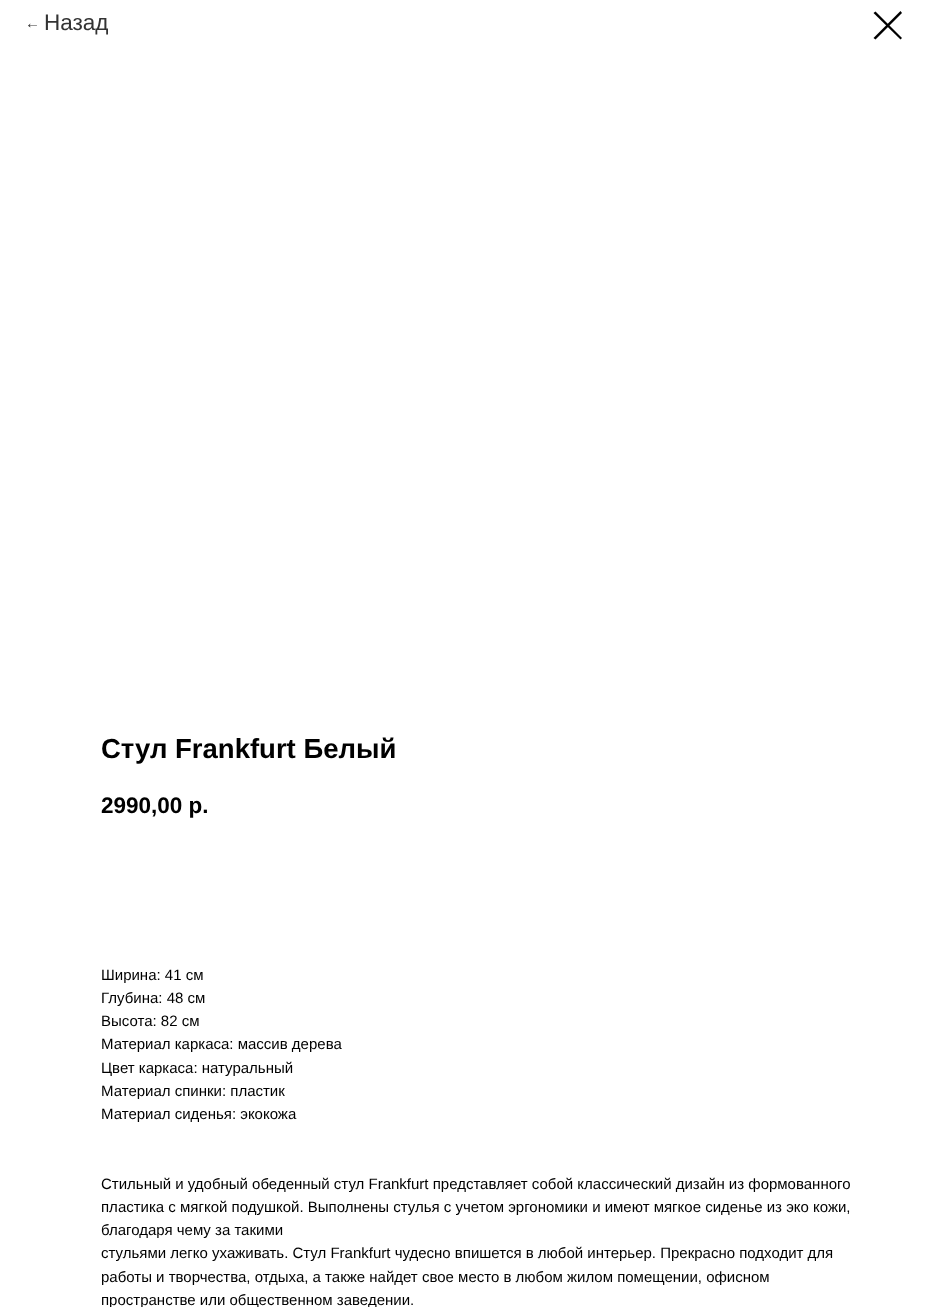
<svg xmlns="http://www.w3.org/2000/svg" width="927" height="1307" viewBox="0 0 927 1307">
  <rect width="100%" height="100%" fill="#fff"/>
  <path d="M873.5 13L875.5 11.5L902 38L900.5 39.5Z" fill="#000" fill-rule="evenodd"/>
  <path d="M900.5 11L902 13L875.5 39.5L873.5 38Z" fill="#000" fill-rule="evenodd"/>
  <text x="25" y="28" font-family="Liberation Sans" font-size="15" fill="#333">←</text>
  <text x="44" y="30" font-family="Liberation Sans" font-size="22.5" fill="#333">Назад</text>
  <text x="101" y="758" font-family="Liberation Sans" font-size="27.5" font-weight="bold" fill="#000">Стул Frankfurt Белый</text>
  <text x="101" y="813" font-family="Liberation Sans" font-size="22.5" font-weight="bold" fill="#000">2990,00 р.</text>
  <g font-family="Liberation Sans" font-size="15" fill="#000">
    <text x="101" y="980">Ширина: 41 см</text>
    <text x="101" y="1003">Глубина: 48 см</text>
    <text x="101" y="1026">Высота: 82 см</text>
    <text x="101" y="1049">Материал каркаса: массив дерева</text>
    <text x="101" y="1073">Цвет каркаса: натуральный</text>
    <text x="101" y="1096">Материал спинки: пластик</text>
    <text x="101" y="1119">Материал сиденья: экокожа</text>
    <text x="101" y="1189">Стильный и удобный обеденный стул Frankfurt представляет собой классический дизайн из формованного</text>
    <text x="101" y="1212">пластика с мягкой подушкой. Выполнены стулья с учетом эргономики и имеют мягкое сиденье из эко кожи,</text>
    <text x="101" y="1235">благодаря чему за такими</text>
    <text x="101" y="1258">стульями легко ухаживать. Стул Frankfurt чудесно впишется в любой интерьер. Прекрасно подходит для</text>
    <text x="101" y="1282">работы и творчества, отдыха, а также найдет свое место в любом жилом помещении, офисном</text>
    <text x="101" y="1305">пространстве или общественном заведении.</text>
  </g>
</svg>
